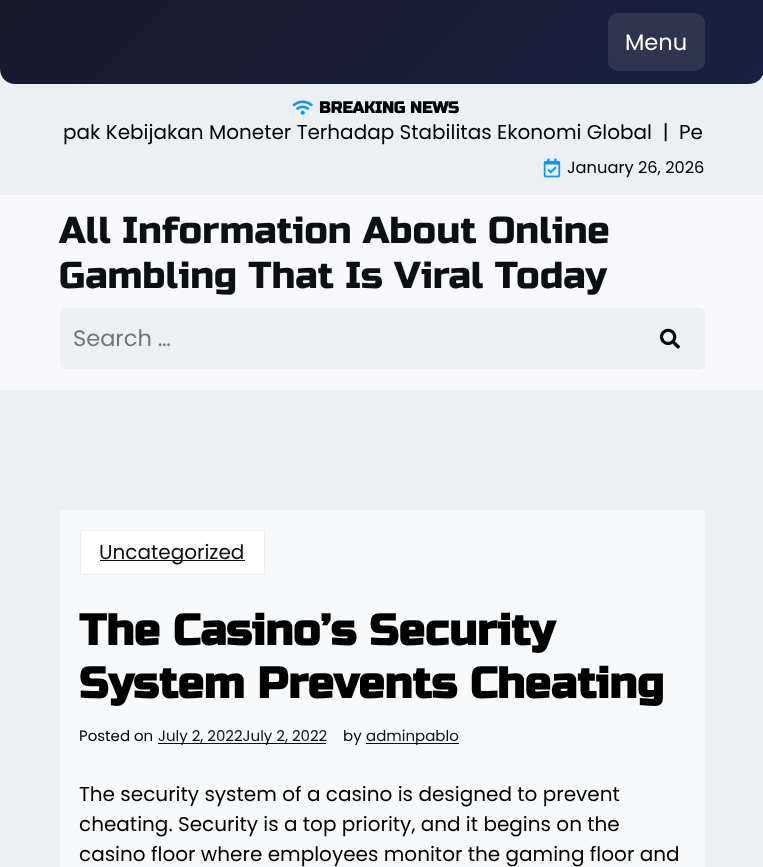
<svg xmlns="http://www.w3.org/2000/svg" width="763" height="867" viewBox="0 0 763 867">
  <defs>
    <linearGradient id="g1" gradientUnits="userSpaceOnUse" x1="170" y1="-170" x2="594" y2="254"><stop offset="0" stop-color="#1a1a2e"/><stop offset="1" stop-color="#16213e"/></linearGradient>
  </defs>
  <rect width="100%" height="100%" fill="#ecf0f3"/>
  <path d="M0 0H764V69C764 77.5 757.5 84 749 84H15C6.5 84 0 77.5 0 69Z" fill="url(#g1)"/>
  <rect x="608" y="13" width="97" height="58" rx="10" fill="#ffffff1a"/>
  <image x="292" y="100" width="21" height="15" href="img/1.png"/>
  <image x="543" y="158" width="18" height="20" href="img/2.png"/>
  <path d="M0 195h763v195H0z" fill="#f9f9fc"/>
  <rect x="60" y="308" width="645" height="61" rx="6" fill="#ecf0f3"/>
  <image x="660" y="328" width="20" height="21" href="img/3.png"/>
  <path d="M60 510h645v357H60z" fill="#f8f9fa"/>
  <path d="M80.5 530.5h184v44H80.5z" fill="#fff" stroke="#ededed"/>
  <path d="M100 560h145v1H100z" fill="#0d1013"/>
  <path d="M158 743h168v1H158z" fill="#0d1013"/>
  <path d="M366 743h93v1H366z" fill="#0d1013"/>
  <text x="625" y="50" font-family="Poppins" font-size="22.5" fill="#fff">Menu</text>
  <text x="319" y="113" font-family="Russo One" font-size="16.25" font-weight="bold" fill="#000">BREAKING NEWS</text>
  <g font-family="Poppins" font-size="20" fill="#000">
    <text x="63" y="139" xml:space="preserve">pak Kebijakan Moneter Terhadap Stabilitas Ekonomi Global  |</text>
    <text x="679" y="139">Pe</text>
  </g>
  <text x="567" y="173" font-family="Poppins" font-size="16.25" fill="#000">January 26, 2026</text>
  <g font-family="Russo One" font-size="37.5" fill="#0d1013">
    <text x="59" y="243">All Information About Online</text>
    <text x="59" y="288">Gambling That Is Viral Today</text>
  </g>
  <text x="73" y="346" font-family="Poppins" font-size="22.5" fill="#757575">Search …</text>
  <text x="99" y="559" font-family="Poppins" font-size="20" fill="#0d1013">Uncategorized</text>
  <g font-family="Russo One" font-size="43.75" font-weight="bold" fill="#000">
    <text x="79" y="645">The Casino’s Security</text>
    <text x="79" y="698">System Prevents Cheating</text>
  </g>
  <text x="79" y="741" font-family="Poppins" font-size="15" fill="#000">Posted on</text>
  <text x="158" y="741" font-family="Poppins" font-size="15" fill="#0d1013">July 2, 2022July 2, 2022</text>
  <text x="343" y="741" font-family="Poppins" font-size="15" fill="#000">by</text>
  <text x="366" y="741" font-family="Poppins" font-size="15" fill="#0d1013">adminpablo</text>
  <g font-family="Poppins" font-size="20" fill="#000">
    <text x="79" y="801">The security system of a casino is designed to prevent</text>
    <text x="79" y="831">cheating. Security is a top priority, and it begins on the</text>
    <text x="79" y="861">casino floor where employees monitor the gaming floor and</text>
  </g>
</svg>
